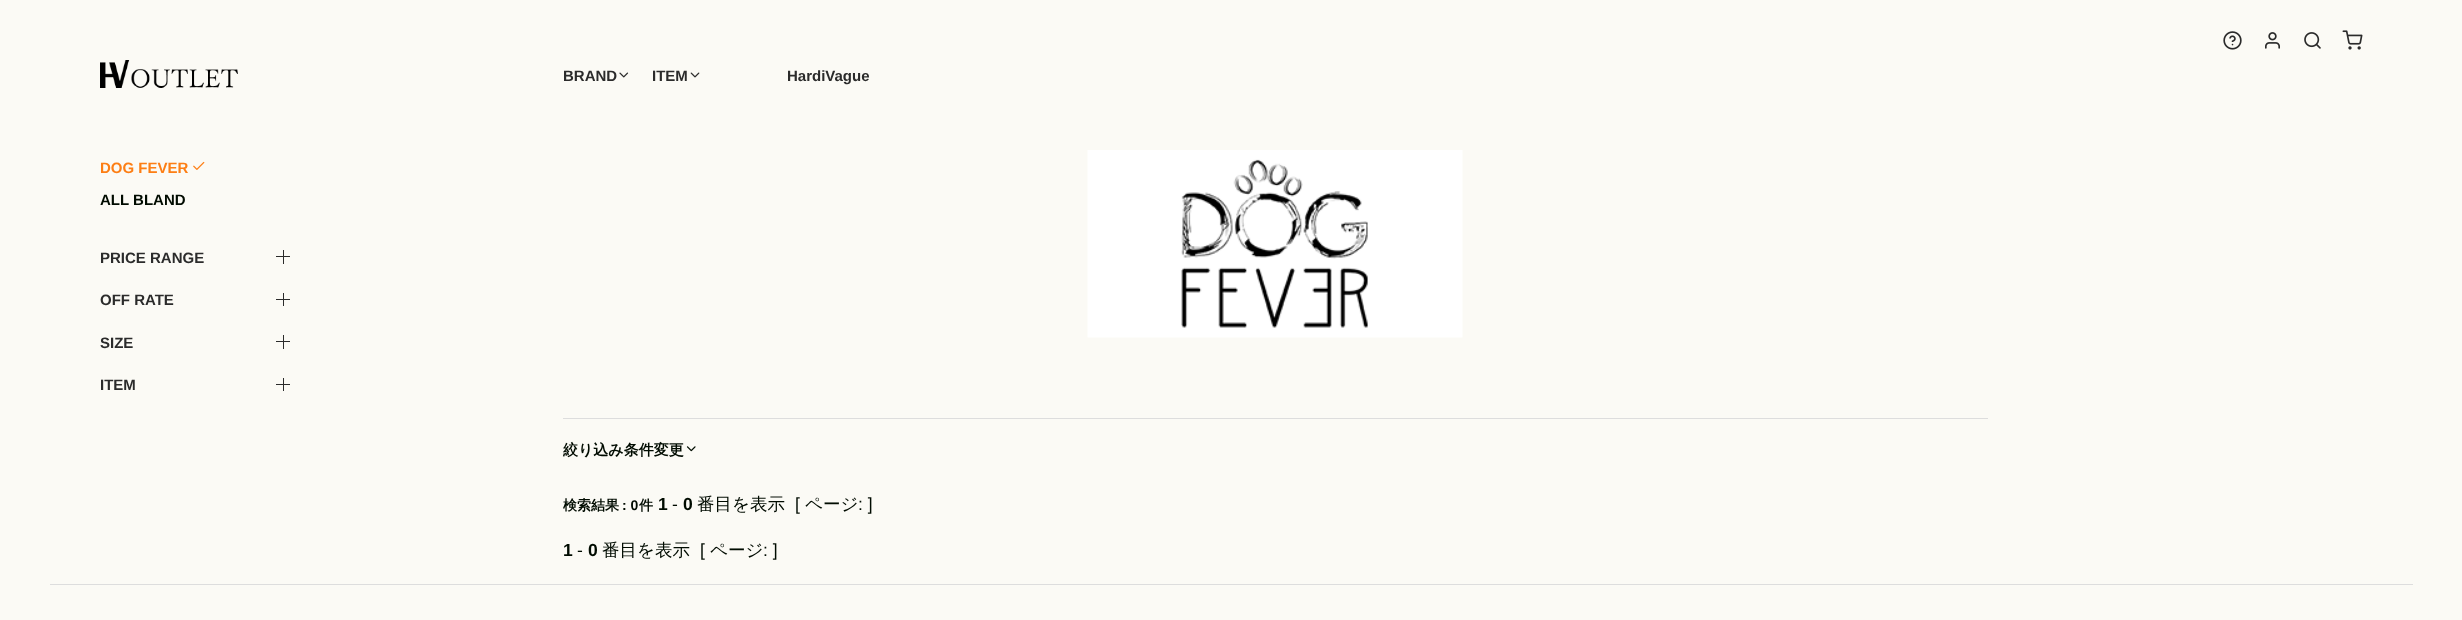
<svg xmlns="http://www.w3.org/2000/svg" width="2462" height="620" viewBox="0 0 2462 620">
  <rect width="100%" height="100%" fill="#fbfaf5"/>
  <image x="2223" y="31" width="19" height="19" href="img/1.png"/>
  <image x="2265" y="32" width="15" height="17" href="img/2.png"/>
  <image x="2304" y="32" width="17" height="17" href="img/3.png"/>
  <image x="2342" y="30" width="21" height="20" href="img/4.png"/>
  <image x="100" y="60" width="138" height="28" href="img/5.png"/>
  <image x="619" y="72" width="10" height="6" href="img/6.png"/>
  <image x="690" y="72" width="10" height="6" href="img/7.png"/>
  <image x="193" y="161" width="12" height="9" href="img/8.png"/>
  <path d="M276 256h14v1H276z" fill="#2b2b2b"/>
  <path d="M283 250h1v14H283z" fill="#2b2b2b"/>
  <path d="M276 299h14v1H276z" fill="#2b2b2b"/>
  <path d="M283 293h1v13H283z" fill="#2b2b2b"/>
  <path d="M276 341h14v1H276z" fill="#2b2b2b"/>
  <path d="M283 335h1v14H283z" fill="#2b2b2b"/>
  <path d="M276 384h14v1H276z" fill="#2b2b2b"/>
  <path d="M283 378h1v13H283z" fill="#2b2b2b"/>
  <image x="1087" y="150" width="376" height="188" href="img/9.png"/>
  <path d="M563 418h1425v1H563z" fill="#ddd"/>
  <image x="686" y="446" width="10" height="6" href="img/10.png"/>
  <path d="M50 584h2363v1H50z" fill="#ddd"/>
  <g font-family="Liberation Sans" font-size="15" font-weight="bold" fill="#2b2b2b">
    <text x="563" y="81">BRAND</text>
    <text x="652" y="81">ITEM</text>
    <text x="787" y="81">HardiVague</text>
  </g>
  <text x="100" y="173" font-family="Liberation Sans" font-size="15" font-weight="bold" fill="#fd7e14">DOG FEVER</text>
  <text x="100" y="205" font-family="Liberation Sans" font-size="15" font-weight="bold" fill="#000b00">ALL BLAND</text>
  <g font-family="Liberation Sans" font-size="15" font-weight="bold" fill="#2b2b2b">
    <text x="100" y="263">PRICE RANGE</text>
    <text x="100" y="305">OFF RATE</text>
    <text x="100" y="348">SIZE</text>
    <text x="100" y="390">ITEM</text>
  </g>
  <text x="563" y="455" font-family="WenQuanYi Zen Hei" font-size="15" font-weight="bold" fill="#000b00">絞り込み条件変更</text>
  <text x="563" y="510" font-family="WenQuanYi Zen Hei" font-size="14" font-weight="bold" fill="#000b00">検索結果</text>
  <text x="622" y="510" font-family="Liberation Sans" font-size="14" font-weight="bold" fill="#000b00">: 0</text>
  <text x="639" y="510" font-family="WenQuanYi Zen Hei" font-size="14" font-weight="bold" fill="#000b00">件</text>
  <text x="658" y="510" font-family="Liberation Sans" font-size="17.5" font-weight="bold" fill="#000b00">1</text>
  <text x="672" y="510" font-family="Liberation Sans" font-size="17.5" fill="#000b00">-</text>
  <text x="683" y="510" font-family="Liberation Sans" font-size="17.5" font-weight="bold" fill="#000b00">0</text>
  <text x="697" y="510" font-family="WenQuanYi Zen Hei" font-size="17.5" font-weight="500" fill="#000b00">番目を表示</text>
  <text x="795" y="510" font-family="Liberation Sans" font-size="17.5" fill="#000b00">[</text>
  <text x="805" y="510" font-family="WenQuanYi Zen Hei" font-size="17.5" font-weight="500" fill="#000b00">ページ</text>
  <text x="858" y="510" font-family="Liberation Sans" font-size="17.5" fill="#000b00">: ]</text>
  <text x="563" y="556" font-family="Liberation Sans" font-size="17.5" font-weight="bold" fill="#000b00">1</text>
  <text x="577" y="556" font-family="Liberation Sans" font-size="17.5" fill="#000b00">-</text>
  <text x="588" y="556" font-family="Liberation Sans" font-size="17.5" font-weight="bold" fill="#000b00">0</text>
  <text x="602" y="556" font-family="WenQuanYi Zen Hei" font-size="17.5" font-weight="500" fill="#000b00">番目を表示</text>
  <text x="700" y="556" font-family="Liberation Sans" font-size="17.5" fill="#000b00">[</text>
  <text x="710" y="556" font-family="WenQuanYi Zen Hei" font-size="17.5" font-weight="500" fill="#000b00">ページ</text>
  <text x="763" y="556" font-family="Liberation Sans" font-size="17.5" fill="#000b00">: ]</text>
</svg>
